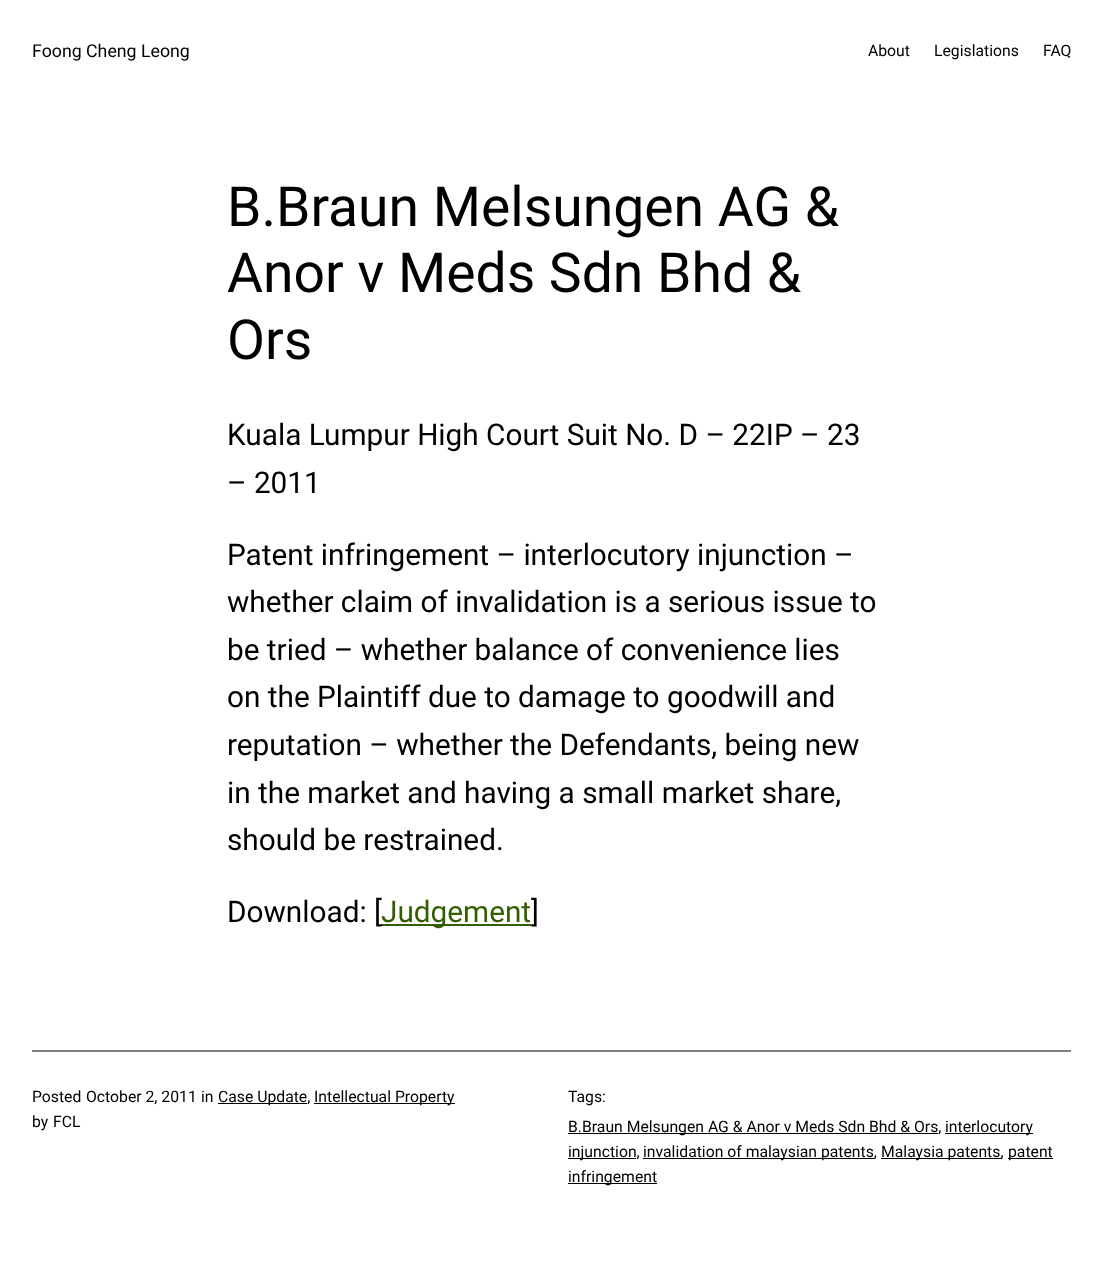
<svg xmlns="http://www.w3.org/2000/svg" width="1103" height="1286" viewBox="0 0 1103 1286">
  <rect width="100%" height="100%" fill="#fff"/>
  <path d="M381 924h150v2H381z" fill="#345c00"/>
  <path d="M32 1050h1039v2H32z" fill="#808080"/>
  <path d="M218 1103h89v1H218z" fill="#000"/>
  <path d="M314 1103h141v1H314z" fill="#000"/>
  <path d="M568 1133h370v1H568z" fill="#000"/>
  <path d="M945 1133h88v1H945z" fill="#000"/>
  <path d="M568 1158h68v1H568z" fill="#000"/>
  <path d="M643 1158h231v1H643z" fill="#000"/>
  <path d="M881 1158h120v1H881z" fill="#000"/>
  <path d="M1008 1158h45v1H1008z" fill="#000"/>
  <path d="M568 1183h89v1H568z" fill="#000"/>
  <text x="32" y="57" font-family="Roboto" font-size="17.75" fill="#000">Foong Cheng Leong</text>
  <g font-family="Roboto" font-size="15.75" fill="#000">
    <text x="868" y="56">About</text>
    <text x="934" y="56">Legislations</text>
    <text x="1043" y="56">FAQ</text>
  </g>
  <g font-family="Roboto" font-size="55.25" fill="#000">
    <text x="227" y="226">B.Braun Melsungen AG &amp;</text>
    <text x="227" y="292">Anor v Meds Sdn Bhd &amp;</text>
    <text x="227" y="359">Ors</text>
  </g>
  <g font-family="Roboto" font-size="29.75" fill="#000">
    <text x="227" y="445">Kuala Lumpur High Court Suit No. D – 22IP – 23</text>
    <text x="227" y="493">– 2011</text>
    <text x="227" y="565">Patent infringement – interlocutory injunction –</text>
    <text x="227" y="612">whether claim of invalidation is a serious issue to</text>
    <text x="227" y="660">be tried – whether balance of convenience lies</text>
    <text x="227" y="707">on the Plaintiff due to damage to goodwill and</text>
    <text x="227" y="755">reputation – whether the Defendants, being new</text>
    <text x="227" y="803">in the market and having a small market share,</text>
    <text x="227" y="850">should be restrained.</text>
    <text x="227" y="922">Download: [</text>
  </g>
  <text x="381" y="922" font-family="Roboto" font-size="29.75" fill="#345c00">Judgement</text>
  <text x="531" y="922" font-family="Roboto" font-size="29.75" fill="#000">]</text>
  <g font-family="Roboto" font-size="15.75" fill="#000">
    <text x="32" y="1102">Posted</text>
    <text x="86" y="1102">October 2, 2011</text>
    <text x="201" y="1102">in</text>
    <text x="218" y="1102">Case Update,</text>
    <text x="314" y="1102">Intellectual Property</text>
    <text x="32" y="1127">by</text>
    <text x="53" y="1127">FCL</text>
    <text x="568" y="1102">Tags:</text>
    <text x="568" y="1132">B.Braun Melsungen AG &amp; Anor v Meds Sdn Bhd &amp; Ors,</text>
    <text x="945" y="1132">interlocutory</text>
    <text x="568" y="1157">injunction,</text>
    <text x="643" y="1157">invalidation of malaysian patents,</text>
    <text x="881" y="1157">Malaysia patents,</text>
    <text x="1008" y="1157">patent</text>
    <text x="568" y="1182">infringement</text>
  </g>
</svg>
